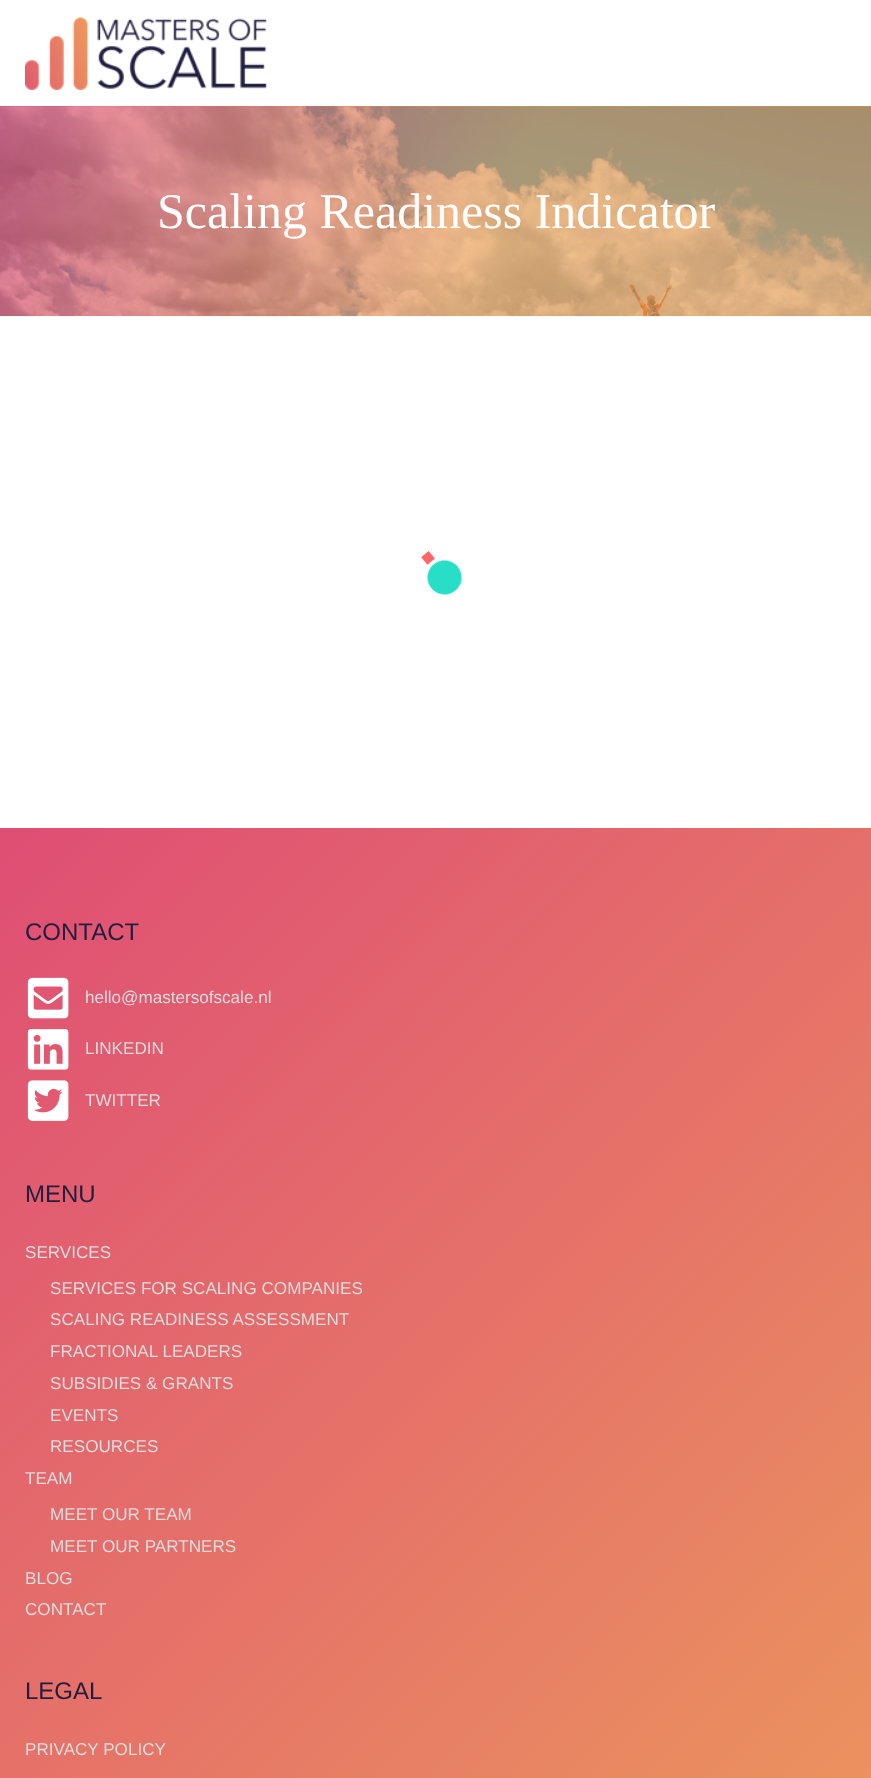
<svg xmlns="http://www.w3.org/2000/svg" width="871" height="1778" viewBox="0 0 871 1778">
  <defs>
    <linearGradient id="g1" gradientUnits="userSpaceOnUse" x1="17" y1="59" x2="854" y2="364"><stop offset="0" stop-color="#df4e74"/><stop offset="0.57" stop-color="#efa659"/></linearGradient>
    <linearGradient id="g2" gradientUnits="userSpaceOnUse" x1="-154" y1="982" x2="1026" y2="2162"><stop offset="0" stop-color="#df4e74"/><stop offset="1" stop-color="#eea658"/></linearGradient>
  </defs>
  <rect width="100%" height="100%" fill="#fff"/>
  <image x="25" y="17" width="242" height="73" href="img/1.png"/>
  <path d="M0 106h871v210H0z" fill="url(#g1)"/>
  <image x="0" y="106" width="871" height="211" href="img/2.png"/>
  <image x="421" y="551" width="42" height="45" href="img/3.png"/>
  <path d="M0 828h871v950H0z" fill="url(#g2)"/>
  <image x="27" y="977" width="42" height="42" href="img/4.png"/>
  <image x="27" y="1029" width="42" height="41" href="img/5.png"/>
  <image x="27" y="1080" width="42" height="41" href="img/6.png"/>
  <text x="157" y="228" font-family="Liberation Serif" font-size="50" fill="#fff">Scaling Readiness Indicator</text>
  <text x="25" y="940" font-family="Liberation Sans" font-size="24" fill="#211d3e">CONTACT</text>
  <g font-family="Liberation Sans" font-size="17.1" fill="#ddd">
    <text x="85" y="1003">hello@mastersofscale.nl</text>
    <text x="85" y="1054">LINKEDIN</text>
    <text x="85" y="1106">TWITTER</text>
  </g>
  <text x="25" y="1202" font-family="Liberation Sans" font-size="24" fill="#211d3e">MENU</text>
  <g font-family="Liberation Sans" font-size="17.1" fill="#ddd">
    <text x="25" y="1258">SERVICES</text>
    <text x="50" y="1294">SERVICES FOR SCALING COMPANIES</text>
    <text x="50" y="1325">SCALING READINESS ASSESSMENT</text>
    <text x="50" y="1357">FRACTIONAL LEADERS</text>
    <text x="50" y="1389">SUBSIDIES &amp; GRANTS</text>
    <text x="50" y="1421">EVENTS</text>
    <text x="50" y="1452">RESOURCES</text>
    <text x="25" y="1484">TEAM</text>
    <text x="50" y="1520">MEET OUR TEAM</text>
    <text x="50" y="1552">MEET OUR PARTNERS</text>
    <text x="25" y="1584">BLOG</text>
    <text x="25" y="1615">CONTACT</text>
  </g>
  <text x="25" y="1699" font-family="Liberation Sans" font-size="24" fill="#211d3e">LEGAL</text>
  <text x="25" y="1755" font-family="Liberation Sans" font-size="17.1" fill="#ddd">PRIVACY POLICY</text>
</svg>
